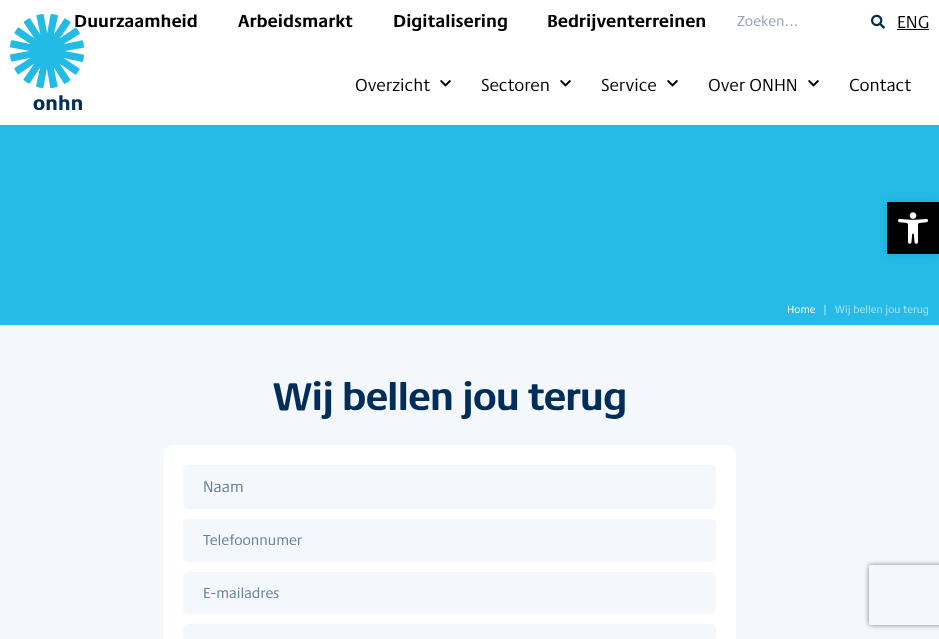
<svg xmlns="http://www.w3.org/2000/svg" width="939" height="639" viewBox="0 0 939 639">
  <defs>
    <clipPath id="clip1"><path d="M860 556H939V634H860ZM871 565H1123C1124 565 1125 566 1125 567V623C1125 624 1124 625 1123 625H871C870 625 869 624 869 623V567C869 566 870 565 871 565Z" clip-rule="evenodd"/></clipPath>
  </defs>
  <rect width="100%" height="100%" fill="#fff"/>
  <image x="871" y="14" width="14" height="15" href="img/1.png"/>
  <path d="M897 29h32v1H897z" fill="#000"/>
  <path d="M0 125h939v1H0z" fill="#24b4dd"/>
  <image x="440" y="80" width="11" height="7" href="img/3.png"/>
  <image x="560" y="80" width="11" height="7" href="img/3.png"/>
  <image x="667" y="80" width="11" height="7" href="img/3.png"/>
  <image x="808" y="80" width="11" height="7" href="img/3.png"/>
  <path d="M0 126h939v199H0z" fill="#26bbe6"/>
  <path d="M887 202h52v52H887z" fill="#0000001a" filter="blur(5px)"/>
  <path d="M887 202h52v52H887z" fill="#000"/>
  <image x="898" y="212" width="30" height="32" href="img/4.png"/>
  <path d="M0 325h939v314H0z" fill="#f4f7fc"/>
  <rect x="163" y="445" width="573" height="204" rx="10" fill="#fff"/>
  <rect x="183" y="465" width="533" height="44" rx="5" fill="#f4f7fc"/>
  <rect x="183" y="519" width="533" height="43" rx="5" fill="#f4f7fc"/>
  <rect x="183" y="572" width="533" height="42" rx="5" fill="#f4f7fc"/>
  <g clip-path="url(#clip1)">
    <rect x="869" y="565" width="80" height="60" rx="2" fill="#808080" filter="blur(2.5px)"/>
  </g>
  <rect x="183" y="624" width="533" height="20" rx="5" fill="#f4f7fc"/>
  <g font-family="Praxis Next" font-size="18" font-weight="bold" fill="#000">
    <text x="74" y="27">Duurzaamheid</text>
    <text x="238" y="27">Arbeidsmarkt</text>
    <text x="393" y="27">Digitalisering</text>
    <text x="547" y="27">Bedrijventerreinen</text>
  </g>
  <text x="737" y="26" font-family="Praxis Next" font-size="15" fill="#92a5b8">Zoeken...</text>
  <text x="897" y="28" font-family="Praxis Next" font-size="18" fill="#000">ENG</text>
  <image x="10" y="14" width="74" height="96" href="img/2.png"/>
  <g font-family="Praxis Next" font-size="18" fill="#000">
    <text x="355" y="91">Overzicht</text>
    <text x="481" y="91">Sectoren</text>
    <text x="601" y="91">Service</text>
    <text x="708" y="91">Over ONHN</text>
    <text x="849" y="91">Contact</text>
  </g>
  <text x="787" y="313" font-family="Praxis Next" font-size="11" fill="#fff">Home</text>
  <g font-family="Praxis Next" font-size="11" fill="#ade5f6">
    <text x="823" y="313">|</text>
    <text x="835" y="313">Wij bellen jou terug</text>
  </g>
  <text x="273" y="410" font-family="Praxis Next" font-size="40" font-weight="bold" letter-spacing="-1" fill="#012d5a">Wij bellen jou terug</text>
  <text x="203" y="492" font-family="Praxis Next" font-size="16" fill="#627e9b">Naam</text>
  <g font-family="Praxis Next" font-size="15" fill="#627e9b">
    <text x="203" y="545">Telefoonnumer</text>
    <text x="203" y="598">E-mailadres</text>
  </g>
</svg>
